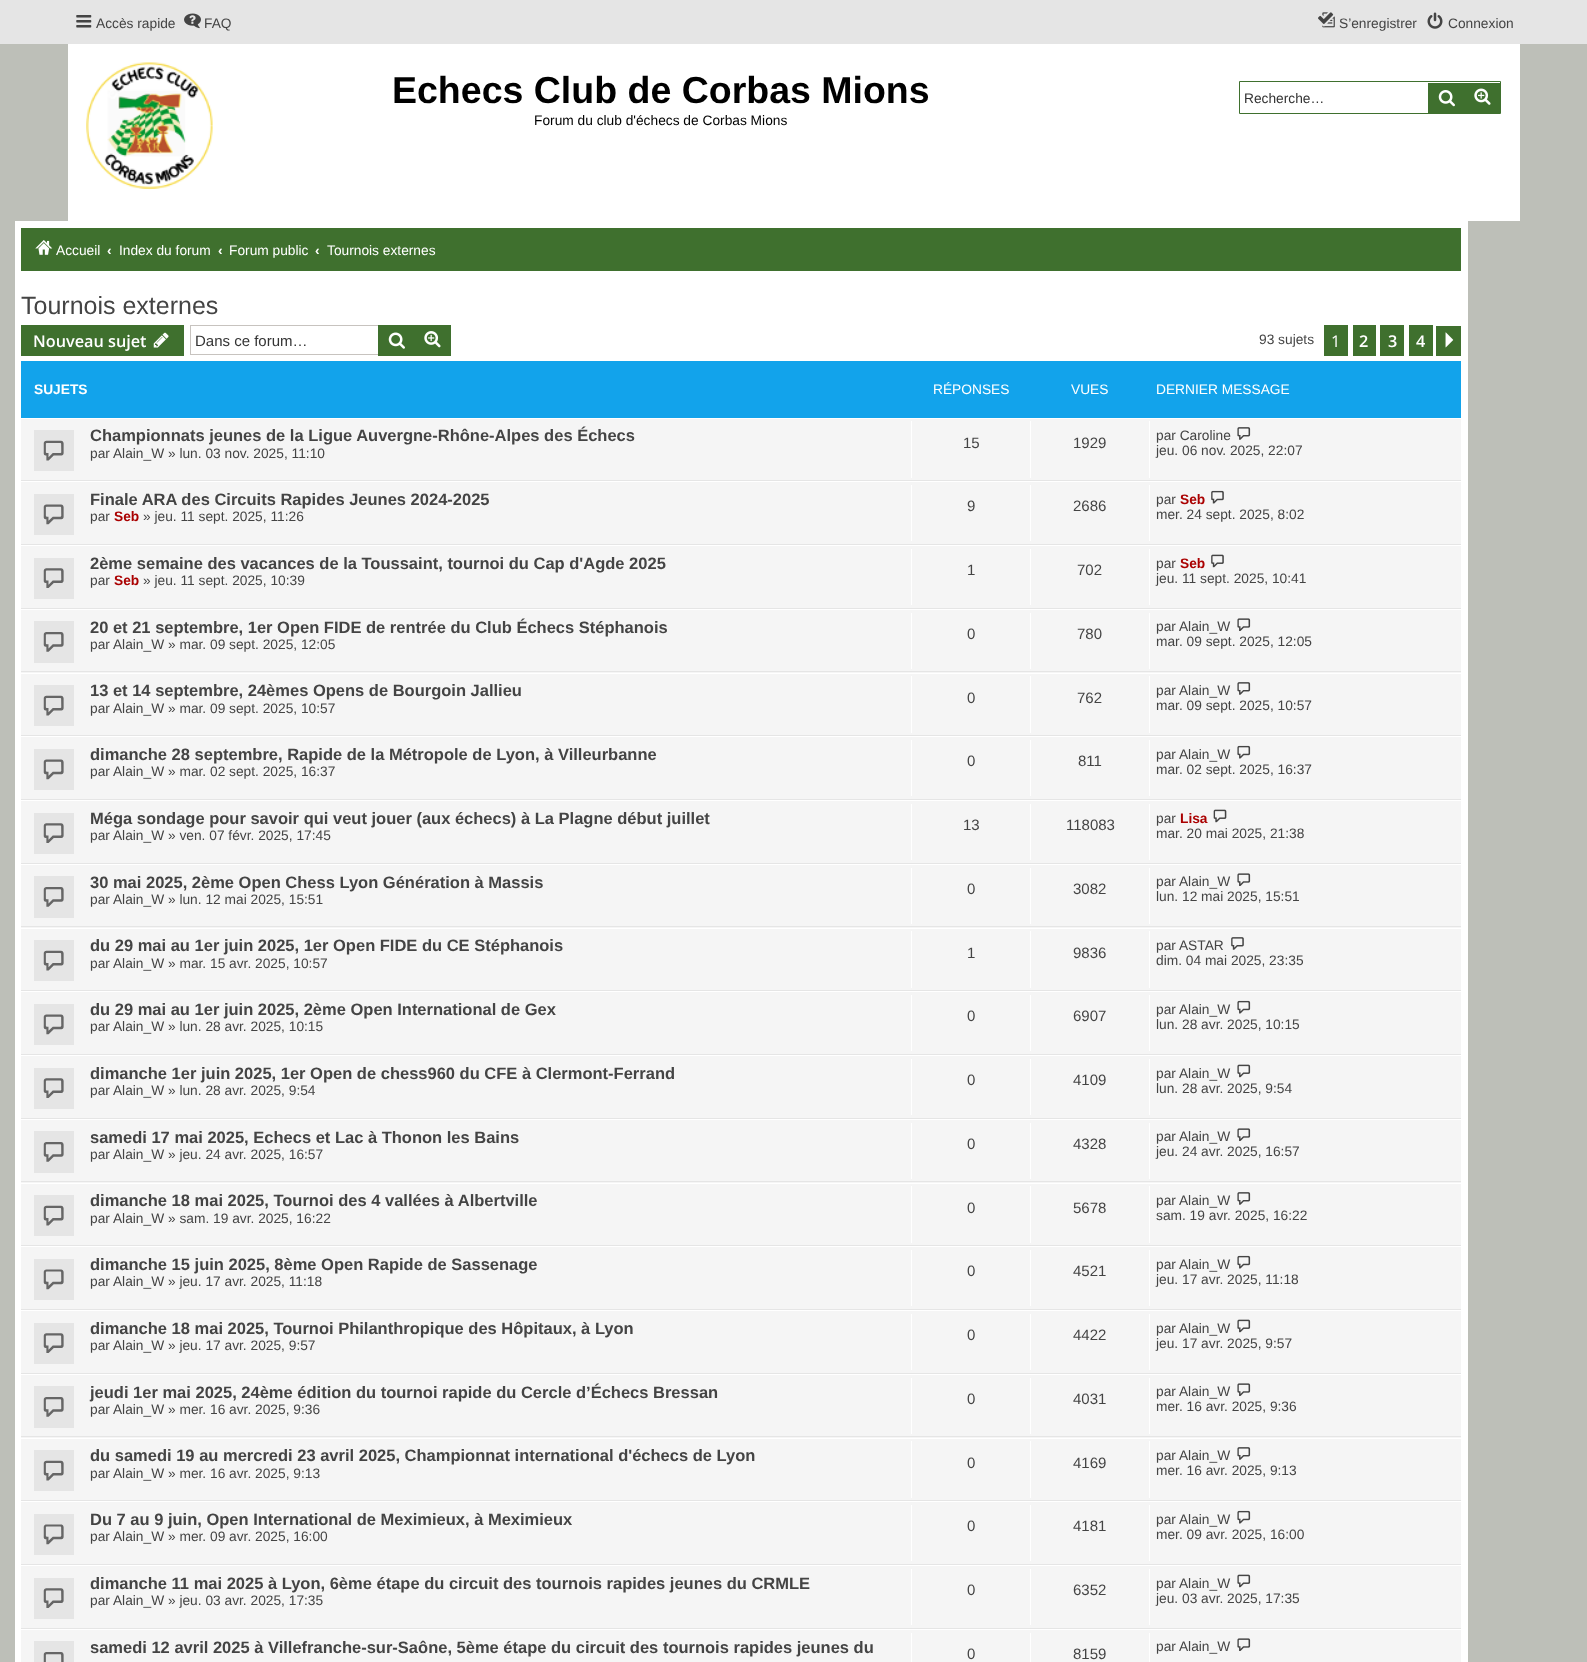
<svg xmlns="http://www.w3.org/2000/svg" width="1587" height="1662" viewBox="0 0 1587 1662">
  <rect width="100%" height="100%" fill="#bdbfb8"/>
  <path d="M0 0h1587v44H0z" fill="#e5e5e5"/>
  <image x="76" y="15" width="16" height="13" href="img/1.png"/>
  <image x="184" y="13" width="17" height="16" href="img/2.png"/>
  <image x="1318" y="12" width="17" height="16" href="img/3.png"/>
  <image x="1427" y="12" width="16" height="17" href="img/4.png"/>
  <path d="M68 44h1452v177H68z" fill="#fff"/>
  <image x="86" y="62" width="127" height="128" href="img/5.png"/>
  <path d="M1239.5 81.5h261v32H1239.5z" fill="none" stroke="#3f702e"/>
  <path d="M1428 83h72v30H1428z" fill="#3f702e"/>
  <image x="1438" y="90" width="17" height="17" href="img/6.png"/>
  <image x="1474" y="88" width="17" height="17" href="img/7.png"/>
  <path d="M15 221h1453v1441H15z" fill="#fff"/>
  <path d="M21 228h1440v43H21z" fill="#3f702e"/>
  <image x="35" y="240" width="18" height="15" href="img/8.png"/>
  <path d="M21 325h163v31H21z" fill="#3f702e"/>
  <image x="153" y="332" width="16" height="16" href="img/9.png"/>
  <path d="M190 325h188v1H190z" fill="#c7c3bf"/>
  <path d="M190 354h188v1H190z" fill="#c7c3bf"/>
  <path d="M190 325h1v30H190z" fill="#c7c3bf"/>
  <path d="M378 325h37v31H378z" fill="#3f702e"/>
  <image x="388" y="332" width="17" height="17" href="img/10.png"/>
  <path d="M415 326h35v29H415z" fill="#3f702e"/>
  <path d="M415 325h36v1H415z" fill="#3f702e"/>
  <path d="M450 325h1v31H450z" fill="#3f702e"/>
  <path d="M415 355h36v1H415z" fill="#3f702e"/>
  <image x="424" y="331" width="17" height="17" href="img/11.png"/>
  <path d="M1324 325h24v31H1324z" fill="#3f702e"/>
  <path d="M1353 325h23v31H1353z" fill="#3f702e"/>
  <path d="M1380 325h24v31H1380z" fill="#3f702e"/>
  <path d="M1409 325h24v31H1409z" fill="#3f702e"/>
  <path d="M1436 326h25v30H1436z" fill="#3f702e"/>
  <image x="1445" y="332" width="9" height="16" href="img/12.png"/>
  <path d="M21 361h1440v57H21z" fill="#12a3eb"/>
  <path d="M21 419h1440v61H21z" fill="#f5f5f5"/>
  <path d="M21 480h1440v1H21z" fill="#e5e5e5"/>
  <path d="M34 430h40v41H34z" fill="#e5e5e5"/>
  <image x="43" y="440" width="21" height="21" href="img/13.png"/>
  <path d="M911 421h1v57H911z" fill="#fff"/>
  <path d="M1030 421h1v57H1030z" fill="#fff"/>
  <path d="M1149 421h1v57H1149z" fill="#fff"/>
  <image x="1237" y="427" width="14" height="13" href="img/14.png"/>
  <path d="M21 482h1440v62H21z" fill="#f5f5f5"/>
  <path d="M21 544h1440v1H21z" fill="#e5e5e5"/>
  <path d="M34 494h40v41H34z" fill="#e5e5e5"/>
  <image x="43" y="504" width="21" height="21" href="img/15.png"/>
  <path d="M911 485h1v56H911z" fill="#fff"/>
  <path d="M1030 485h1v56H1030z" fill="#fff"/>
  <path d="M1149 485h1v56H1149z" fill="#fff"/>
  <image x="1211" y="490" width="13" height="14" href="img/16.png"/>
  <path d="M21 546h1440v62H21z" fill="#f5f5f5"/>
  <path d="M21 608h1440v1H21z" fill="#e5e5e5"/>
  <path d="M34 558h40v41H34z" fill="#e5e5e5"/>
  <image x="43" y="568" width="21" height="20" href="img/17.png"/>
  <path d="M911 549h1v56H911z" fill="#fff"/>
  <path d="M1030 549h1v56H1030z" fill="#fff"/>
  <path d="M1149 549h1v56H1149z" fill="#fff"/>
  <image x="1211" y="554" width="13" height="14" href="img/18.png"/>
  <path d="M21 610h1440v63H21z" fill="#f5f5f5"/>
  <path d="M21 671h1440v1H21z" fill="#e5e5e5"/>
  <path d="M34 621h40v42H34z" fill="#e5e5e5"/>
  <image x="43" y="632" width="21" height="20" href="img/19.png"/>
  <path d="M911 613h1v56H911z" fill="#fff"/>
  <path d="M1030 613h1v56H1030z" fill="#fff"/>
  <path d="M1149 613h1v56H1149z" fill="#fff"/>
  <image x="1237" y="618" width="14" height="13" href="img/20.png"/>
  <path d="M21 674h1440v61H21z" fill="#f5f5f5"/>
  <path d="M21 735h1440v1H21z" fill="#e5e5e5"/>
  <path d="M34 685h40v41H34z" fill="#e5e5e5"/>
  <image x="43" y="695" width="21" height="21" href="img/13.png"/>
  <path d="M911 676h1v57H911z" fill="#fff"/>
  <path d="M1030 676h1v57H1030z" fill="#fff"/>
  <path d="M1149 676h1v57H1149z" fill="#fff"/>
  <image x="1237" y="682" width="14" height="13" href="img/14.png"/>
  <path d="M21 737h1440v62H21z" fill="#f5f5f5"/>
  <path d="M21 799h1440v1H21z" fill="#e5e5e5"/>
  <path d="M34 749h40v41H34z" fill="#e5e5e5"/>
  <image x="43" y="759" width="21" height="21" href="img/21.png"/>
  <path d="M911 740h1v56H911z" fill="#fff"/>
  <path d="M1030 740h1v56H1030z" fill="#fff"/>
  <path d="M1149 740h1v56H1149z" fill="#fff"/>
  <image x="1237" y="745" width="14" height="14" href="img/22.png"/>
  <path d="M21 801h1440v62H21z" fill="#f5f5f5"/>
  <path d="M21 863h1440v1H21z" fill="#e5e5e5"/>
  <path d="M34 813h40v41H34z" fill="#e5e5e5"/>
  <image x="43" y="823" width="21" height="20" href="img/17.png"/>
  <path d="M911 804h1v56H911z" fill="#fff"/>
  <path d="M1030 804h1v56H1030z" fill="#fff"/>
  <path d="M1149 804h1v56H1149z" fill="#fff"/>
  <image x="1213" y="809" width="14" height="14" href="img/23.png"/>
  <path d="M21 865h1440v63H21z" fill="#f5f5f5"/>
  <path d="M21 926h1440v1H21z" fill="#e5e5e5"/>
  <path d="M34 876h40v42H34z" fill="#e5e5e5"/>
  <image x="43" y="887" width="21" height="20" href="img/19.png"/>
  <path d="M911 868h1v56H911z" fill="#fff"/>
  <path d="M1030 868h1v56H1030z" fill="#fff"/>
  <path d="M1149 868h1v56H1149z" fill="#fff"/>
  <image x="1237" y="873" width="14" height="13" href="img/20.png"/>
  <path d="M21 929h1440v61H21z" fill="#f5f5f5"/>
  <path d="M21 990h1440v1H21z" fill="#e5e5e5"/>
  <path d="M34 940h40v41H34z" fill="#e5e5e5"/>
  <image x="43" y="950" width="21" height="21" href="img/13.png"/>
  <path d="M911 931h1v57H911z" fill="#fff"/>
  <path d="M1030 931h1v57H1030z" fill="#fff"/>
  <path d="M1149 931h1v57H1149z" fill="#fff"/>
  <image x="1231" y="937" width="13" height="13" href="img/24.png"/>
  <path d="M21 992h1440v62H21z" fill="#f5f5f5"/>
  <path d="M21 1054h1440v1H21z" fill="#e5e5e5"/>
  <path d="M34 1004h40v41H34z" fill="#e5e5e5"/>
  <image x="43" y="1014" width="21" height="21" href="img/25.png"/>
  <path d="M911 995h1v56H911z" fill="#fff"/>
  <path d="M1030 995h1v56H1030z" fill="#fff"/>
  <path d="M1149 995h1v56H1149z" fill="#fff"/>
  <image x="1237" y="1000" width="14" height="14" href="img/22.png"/>
  <path d="M21 1056h1440v62H21z" fill="#f5f5f5"/>
  <path d="M21 1118h1440v1H21z" fill="#e5e5e5"/>
  <path d="M34 1068h40v41H34z" fill="#e5e5e5"/>
  <image x="43" y="1078" width="21" height="20" href="img/17.png"/>
  <path d="M911 1059h1v56H911z" fill="#fff"/>
  <path d="M1030 1059h1v56H1030z" fill="#fff"/>
  <path d="M1149 1059h1v56H1149z" fill="#fff"/>
  <image x="1237" y="1064" width="14" height="14" href="img/26.png"/>
  <path d="M21 1120h1440v63H21z" fill="#f5f5f5"/>
  <path d="M21 1181h1440v1H21z" fill="#e5e5e5"/>
  <path d="M34 1131h40v42H34z" fill="#e5e5e5"/>
  <image x="43" y="1142" width="21" height="20" href="img/19.png"/>
  <path d="M911 1123h1v56H911z" fill="#fff"/>
  <path d="M1030 1123h1v56H1030z" fill="#fff"/>
  <path d="M1149 1123h1v56H1149z" fill="#fff"/>
  <image x="1237" y="1128" width="14" height="13" href="img/20.png"/>
  <path d="M21 1184h1440v61H21z" fill="#f5f5f5"/>
  <path d="M21 1245h1440v1H21z" fill="#e5e5e5"/>
  <path d="M34 1195h40v41H34z" fill="#e5e5e5"/>
  <image x="43" y="1205" width="21" height="21" href="img/13.png"/>
  <path d="M911 1186h1v57H911z" fill="#fff"/>
  <path d="M1030 1186h1v57H1030z" fill="#fff"/>
  <path d="M1149 1186h1v57H1149z" fill="#fff"/>
  <image x="1237" y="1192" width="14" height="13" href="img/14.png"/>
  <path d="M21 1247h1440v62H21z" fill="#f5f5f5"/>
  <path d="M21 1309h1440v1H21z" fill="#e5e5e5"/>
  <path d="M34 1259h40v41H34z" fill="#e5e5e5"/>
  <image x="43" y="1269" width="21" height="21" href="img/27.png"/>
  <path d="M911 1250h1v56H911z" fill="#fff"/>
  <path d="M1030 1250h1v56H1030z" fill="#fff"/>
  <path d="M1149 1250h1v56H1149z" fill="#fff"/>
  <image x="1237" y="1255" width="14" height="14" href="img/22.png"/>
  <path d="M21 1311h1440v62H21z" fill="#f5f5f5"/>
  <path d="M21 1373h1440v1H21z" fill="#e5e5e5"/>
  <path d="M34 1323h40v41H34z" fill="#e5e5e5"/>
  <image x="43" y="1333" width="21" height="20" href="img/17.png"/>
  <path d="M911 1314h1v56H911z" fill="#fff"/>
  <path d="M1030 1314h1v56H1030z" fill="#fff"/>
  <path d="M1149 1314h1v56H1149z" fill="#fff"/>
  <image x="1237" y="1319" width="14" height="14" href="img/26.png"/>
  <path d="M21 1375h1440v63H21z" fill="#f5f5f5"/>
  <path d="M21 1436h1440v1H21z" fill="#e5e5e5"/>
  <path d="M34 1386h40v42H34z" fill="#e5e5e5"/>
  <image x="43" y="1397" width="21" height="20" href="img/19.png"/>
  <path d="M911 1378h1v56H911z" fill="#fff"/>
  <path d="M1030 1378h1v56H1030z" fill="#fff"/>
  <path d="M1149 1378h1v56H1149z" fill="#fff"/>
  <image x="1237" y="1383" width="14" height="13" href="img/20.png"/>
  <path d="M21 1439h1440v61H21z" fill="#f5f5f5"/>
  <path d="M21 1500h1440v1H21z" fill="#e5e5e5"/>
  <path d="M34 1450h40v41H34z" fill="#e5e5e5"/>
  <image x="43" y="1460" width="21" height="21" href="img/13.png"/>
  <path d="M911 1441h1v57H911z" fill="#fff"/>
  <path d="M1030 1441h1v57H1030z" fill="#fff"/>
  <path d="M1149 1441h1v57H1149z" fill="#fff"/>
  <image x="1237" y="1447" width="14" height="13" href="img/14.png"/>
  <path d="M21 1502h1440v62H21z" fill="#f5f5f5"/>
  <path d="M21 1564h1440v1H21z" fill="#e5e5e5"/>
  <path d="M34 1514h40v41H34z" fill="#e5e5e5"/>
  <image x="43" y="1524" width="21" height="21" href="img/28.png"/>
  <path d="M911 1505h1v56H911z" fill="#fff"/>
  <path d="M1030 1505h1v56H1030z" fill="#fff"/>
  <path d="M1149 1505h1v56H1149z" fill="#fff"/>
  <image x="1237" y="1510" width="14" height="14" href="img/22.png"/>
  <path d="M21 1566h1440v62H21z" fill="#f5f5f5"/>
  <path d="M21 1628h1440v1H21z" fill="#e5e5e5"/>
  <path d="M34 1578h40v41H34z" fill="#e5e5e5"/>
  <image x="43" y="1588" width="21" height="20" href="img/17.png"/>
  <path d="M911 1569h1v56H911z" fill="#fff"/>
  <path d="M1030 1569h1v56H1030z" fill="#fff"/>
  <path d="M1149 1569h1v56H1149z" fill="#fff"/>
  <image x="1237" y="1574" width="14" height="14" href="img/26.png"/>
  <path d="M21 1630h1440v32H21z" fill="#f5f5f5"/>
  <path d="M34 1641h40v21H34z" fill="#e5e5e5"/>
  <image x="43" y="1652" width="21" height="10" href="img/29.png"/>
  <path d="M911 1633h1v29H911z" fill="#fff"/>
  <path d="M1030 1633h1v29H1030z" fill="#fff"/>
  <path d="M1149 1633h1v29H1149z" fill="#fff"/>
  <image x="1237" y="1638" width="14" height="13" href="img/20.png"/>
  <g font-family="Liberation Sans" font-size="13.75" fill="#444">
    <text x="96" y="28">Accès rapide</text>
    <text x="204" y="28">FAQ</text>
    <text x="1339" y="28">S’enregistrer</text>
    <text x="1448" y="28">Connexion</text>
  </g>
  <text x="392" y="103" font-family="Liberation Sans" font-size="37.5" font-weight="bold" fill="#000">Echecs Club de Corbas Mions</text>
  <text x="534" y="125" font-family="Liberation Sans" font-size="13.75" fill="#000">Forum du club d'échecs de Corbas Mions</text>
  <text x="1244" y="103" font-family="Liberation Sans" font-size="13.75" fill="#333">Recherche…</text>
  <text x="56" y="255" font-family="Liberation Sans" font-size="13.75" fill="#fff">Accueil</text>
  <text x="107" y="255" font-family="Liberation Sans" font-size="13.75" font-weight="bold" fill="#fff">‹</text>
  <text x="119" y="255" font-family="Liberation Sans" font-size="13.75" fill="#fff">Index du forum</text>
  <text x="218" y="255" font-family="Liberation Sans" font-size="13.75" font-weight="bold" fill="#fff">‹</text>
  <text x="229" y="255" font-family="Liberation Sans" font-size="13.75" fill="#fff">Forum public</text>
  <text x="315" y="255" font-family="Liberation Sans" font-size="13.75" font-weight="bold" fill="#fff">‹</text>
  <text x="327" y="255" font-family="Liberation Sans" font-size="13.75" fill="#fff">Tournois externes</text>
  <text x="21" y="314" font-family="Liberation Sans" font-size="25" fill="#444">Tournois externes</text>
  <text x="33" y="347" font-family="Open Sans" font-size="16.25" font-weight="600" fill="#fff">Nouveau sujet</text>
  <text x="195" y="346" font-family="Liberation Sans" font-size="15" fill="#333">Dans ce forum…</text>
  <text x="1259" y="344" font-family="Liberation Sans" font-size="13.75" fill="#444">93 sujets</text>
  <text x="1331" y="347" font-family="Open Sans" font-size="16.25" fill="#fff">1</text>
  <g font-family="Open Sans" font-size="16.25" font-weight="600" fill="#fff">
    <text x="1359" y="347">2</text>
    <text x="1388" y="347">3</text>
    <text x="1416" y="347">4</text>
  </g>
  <text x="34" y="394" font-family="Liberation Sans" font-size="13.75" font-weight="bold" fill="#fff">SUJETS</text>
  <g font-family="Liberation Sans" font-size="13.75" fill="#fff">
    <text x="933" y="394">RÉPONSES</text>
    <text x="1071" y="394">VUES</text>
    <text x="1156" y="394">DERNIER MESSAGE</text>
  </g>
  <text x="90" y="441" font-family="Liberation Sans" font-size="16.5" font-weight="bold" fill="#444">Championnats jeunes de la Ligue Auvergne-Rhône-Alpes des Échecs</text>
  <text x="90" y="458" font-family="Liberation Sans" font-size="13.75" fill="#444">par Alain_W » lun. 03 nov. 2025, 11:10</text>
  <g font-family="Liberation Sans" font-size="15" fill="#444">
    <text x="963" y="448">15</text>
    <text x="1073" y="448">1929</text>
  </g>
  <g font-family="Liberation Sans" font-size="13.75" fill="#444">
    <text x="1156" y="440">par Caroline</text>
    <text x="1156" y="455">jeu. 06 nov. 2025, 22:07</text>
  </g>
  <text x="90" y="505" font-family="Liberation Sans" font-size="16.5" font-weight="bold" fill="#444">Finale ARA des Circuits Rapides Jeunes 2024-2025</text>
  <text x="90" y="521" font-family="Liberation Sans" font-size="13.75" fill="#444">par</text>
  <text x="114" y="521" font-family="Liberation Sans" font-size="13.75" font-weight="bold" fill="#a00">Seb</text>
  <text x="143" y="521" font-family="Liberation Sans" font-size="13.75" fill="#444">» jeu. 11 sept. 2025, 11:26</text>
  <g font-family="Liberation Sans" font-size="15" fill="#444">
    <text x="967" y="511">9</text>
    <text x="1073" y="511">2686</text>
  </g>
  <text x="1156" y="504" font-family="Liberation Sans" font-size="13.75" fill="#444">par</text>
  <text x="1180" y="504" font-family="Liberation Sans" font-size="13.75" font-weight="bold" fill="#a00">Seb</text>
  <text x="1156" y="519" font-family="Liberation Sans" font-size="13.75" fill="#444">mer. 24 sept. 2025, 8:02</text>
  <text x="90" y="569" font-family="Liberation Sans" font-size="16.5" font-weight="bold" fill="#444">2ème semaine des vacances de la Toussaint, tournoi du Cap d'Agde 2025</text>
  <text x="90" y="585" font-family="Liberation Sans" font-size="13.75" fill="#444">par</text>
  <text x="114" y="585" font-family="Liberation Sans" font-size="13.75" font-weight="bold" fill="#a00">Seb</text>
  <text x="143" y="585" font-family="Liberation Sans" font-size="13.75" fill="#444">» jeu. 11 sept. 2025, 10:39</text>
  <g font-family="Liberation Sans" font-size="15" fill="#444">
    <text x="967" y="575">1</text>
    <text x="1077" y="575">702</text>
  </g>
  <text x="1156" y="568" font-family="Liberation Sans" font-size="13.75" fill="#444">par</text>
  <text x="1180" y="568" font-family="Liberation Sans" font-size="13.75" font-weight="bold" fill="#a00">Seb</text>
  <text x="1156" y="583" font-family="Liberation Sans" font-size="13.75" fill="#444">jeu. 11 sept. 2025, 10:41</text>
  <text x="90" y="633" font-family="Liberation Sans" font-size="16.5" font-weight="bold" fill="#444">20 et 21 septembre, 1er Open FIDE de rentrée du Club Échecs Stéphanois</text>
  <text x="90" y="649" font-family="Liberation Sans" font-size="13.75" fill="#444">par Alain_W » mar. 09 sept. 2025, 12:05</text>
  <g font-family="Liberation Sans" font-size="15" fill="#444">
    <text x="967" y="639">0</text>
    <text x="1077" y="639">780</text>
  </g>
  <g font-family="Liberation Sans" font-size="13.75" fill="#444">
    <text x="1156" y="631">par Alain_W</text>
    <text x="1156" y="646">mar. 09 sept. 2025, 12:05</text>
  </g>
  <text x="90" y="696" font-family="Liberation Sans" font-size="16.5" font-weight="bold" fill="#444">13 et 14 septembre, 24èmes Opens de Bourgoin Jallieu</text>
  <text x="90" y="713" font-family="Liberation Sans" font-size="13.75" fill="#444">par Alain_W » mar. 09 sept. 2025, 10:57</text>
  <g font-family="Liberation Sans" font-size="15" fill="#444">
    <text x="967" y="703">0</text>
    <text x="1077" y="703">762</text>
  </g>
  <g font-family="Liberation Sans" font-size="13.75" fill="#444">
    <text x="1156" y="695">par Alain_W</text>
    <text x="1156" y="710">mar. 09 sept. 2025, 10:57</text>
  </g>
  <text x="90" y="760" font-family="Liberation Sans" font-size="16.5" font-weight="bold" fill="#444">dimanche 28 septembre, Rapide de la Métropole de Lyon, à Villeurbanne</text>
  <text x="90" y="776" font-family="Liberation Sans" font-size="13.75" fill="#444">par Alain_W » mar. 02 sept. 2025, 16:37</text>
  <g font-family="Liberation Sans" font-size="15" fill="#444">
    <text x="967" y="766">0</text>
    <text x="1078" y="766">811</text>
  </g>
  <g font-family="Liberation Sans" font-size="13.75" fill="#444">
    <text x="1156" y="759">par Alain_W</text>
    <text x="1156" y="774">mar. 02 sept. 2025, 16:37</text>
  </g>
  <text x="90" y="824" font-family="Liberation Sans" font-size="16.5" font-weight="bold" fill="#444">Méga sondage pour savoir qui veut jouer (aux échecs) à La Plagne début juillet</text>
  <text x="90" y="840" font-family="Liberation Sans" font-size="13.75" fill="#444">par Alain_W » ven. 07 févr. 2025, 17:45</text>
  <g font-family="Liberation Sans" font-size="15" fill="#444">
    <text x="963" y="830">13</text>
    <text x="1066" y="830">118083</text>
  </g>
  <text x="1156" y="823" font-family="Liberation Sans" font-size="13.75" fill="#444">par</text>
  <text x="1180" y="823" font-family="Liberation Sans" font-size="13.75" font-weight="bold" fill="#a00">Lisa</text>
  <text x="1156" y="838" font-family="Liberation Sans" font-size="13.75" fill="#444">mar. 20 mai 2025, 21:38</text>
  <text x="90" y="888" font-family="Liberation Sans" font-size="16.5" font-weight="bold" fill="#444">30 mai 2025, 2ème Open Chess Lyon Génération à Massis</text>
  <text x="90" y="904" font-family="Liberation Sans" font-size="13.75" fill="#444">par Alain_W » lun. 12 mai 2025, 15:51</text>
  <g font-family="Liberation Sans" font-size="15" fill="#444">
    <text x="967" y="894">0</text>
    <text x="1073" y="894">3082</text>
  </g>
  <g font-family="Liberation Sans" font-size="13.75" fill="#444">
    <text x="1156" y="886">par Alain_W</text>
    <text x="1156" y="901">lun. 12 mai 2025, 15:51</text>
  </g>
  <text x="90" y="951" font-family="Liberation Sans" font-size="16.5" font-weight="bold" fill="#444">du 29 mai au 1er juin 2025, 1er Open FIDE du CE Stéphanois</text>
  <text x="90" y="968" font-family="Liberation Sans" font-size="13.75" fill="#444">par Alain_W » mar. 15 avr. 2025, 10:57</text>
  <g font-family="Liberation Sans" font-size="15" fill="#444">
    <text x="967" y="958">1</text>
    <text x="1073" y="958">9836</text>
  </g>
  <g font-family="Liberation Sans" font-size="13.75" fill="#444">
    <text x="1156" y="950">par ASTAR</text>
    <text x="1156" y="965">dim. 04 mai 2025, 23:35</text>
  </g>
  <text x="90" y="1015" font-family="Liberation Sans" font-size="16.5" font-weight="bold" fill="#444">du 29 mai au 1er juin 2025, 2ème Open International de Gex</text>
  <text x="90" y="1031" font-family="Liberation Sans" font-size="13.75" fill="#444">par Alain_W » lun. 28 avr. 2025, 10:15</text>
  <g font-family="Liberation Sans" font-size="15" fill="#444">
    <text x="967" y="1021">0</text>
    <text x="1073" y="1021">6907</text>
  </g>
  <g font-family="Liberation Sans" font-size="13.75" fill="#444">
    <text x="1156" y="1014">par Alain_W</text>
    <text x="1156" y="1029">lun. 28 avr. 2025, 10:15</text>
  </g>
  <text x="90" y="1079" font-family="Liberation Sans" font-size="16.5" font-weight="bold" fill="#444">dimanche 1er juin 2025, 1er Open de chess960 du CFE à Clermont-Ferrand</text>
  <text x="90" y="1095" font-family="Liberation Sans" font-size="13.75" fill="#444">par Alain_W » lun. 28 avr. 2025, 9:54</text>
  <g font-family="Liberation Sans" font-size="15" fill="#444">
    <text x="967" y="1085">0</text>
    <text x="1073" y="1085">4109</text>
  </g>
  <g font-family="Liberation Sans" font-size="13.75" fill="#444">
    <text x="1156" y="1078">par Alain_W</text>
    <text x="1156" y="1093">lun. 28 avr. 2025, 9:54</text>
  </g>
  <text x="90" y="1143" font-family="Liberation Sans" font-size="16.5" font-weight="bold" fill="#444">samedi 17 mai 2025, Echecs et Lac à Thonon les Bains</text>
  <text x="90" y="1159" font-family="Liberation Sans" font-size="13.75" fill="#444">par Alain_W » jeu. 24 avr. 2025, 16:57</text>
  <g font-family="Liberation Sans" font-size="15" fill="#444">
    <text x="967" y="1149">0</text>
    <text x="1073" y="1149">4328</text>
  </g>
  <g font-family="Liberation Sans" font-size="13.75" fill="#444">
    <text x="1156" y="1141">par Alain_W</text>
    <text x="1156" y="1156">jeu. 24 avr. 2025, 16:57</text>
  </g>
  <text x="90" y="1206" font-family="Liberation Sans" font-size="16.5" font-weight="bold" fill="#444">dimanche 18 mai 2025, Tournoi des 4 vallées à Albertville</text>
  <text x="90" y="1223" font-family="Liberation Sans" font-size="13.75" fill="#444">par Alain_W » sam. 19 avr. 2025, 16:22</text>
  <g font-family="Liberation Sans" font-size="15" fill="#444">
    <text x="967" y="1213">0</text>
    <text x="1073" y="1213">5678</text>
  </g>
  <g font-family="Liberation Sans" font-size="13.75" fill="#444">
    <text x="1156" y="1205">par Alain_W</text>
    <text x="1156" y="1220">sam. 19 avr. 2025, 16:22</text>
  </g>
  <text x="90" y="1270" font-family="Liberation Sans" font-size="16.5" font-weight="bold" fill="#444">dimanche 15 juin 2025, 8ème Open Rapide de Sassenage</text>
  <text x="90" y="1286" font-family="Liberation Sans" font-size="13.75" fill="#444">par Alain_W » jeu. 17 avr. 2025, 11:18</text>
  <g font-family="Liberation Sans" font-size="15" fill="#444">
    <text x="967" y="1276">0</text>
    <text x="1073" y="1276">4521</text>
  </g>
  <g font-family="Liberation Sans" font-size="13.75" fill="#444">
    <text x="1156" y="1269">par Alain_W</text>
    <text x="1156" y="1284">jeu. 17 avr. 2025, 11:18</text>
  </g>
  <text x="90" y="1334" font-family="Liberation Sans" font-size="16.5" font-weight="bold" fill="#444">dimanche 18 mai 2025, Tournoi Philanthropique des Hôpitaux, à Lyon</text>
  <text x="90" y="1350" font-family="Liberation Sans" font-size="13.75" fill="#444">par Alain_W » jeu. 17 avr. 2025, 9:57</text>
  <g font-family="Liberation Sans" font-size="15" fill="#444">
    <text x="967" y="1340">0</text>
    <text x="1073" y="1340">4422</text>
  </g>
  <g font-family="Liberation Sans" font-size="13.75" fill="#444">
    <text x="1156" y="1333">par Alain_W</text>
    <text x="1156" y="1348">jeu. 17 avr. 2025, 9:57</text>
  </g>
  <text x="90" y="1398" font-family="Liberation Sans" font-size="16.5" font-weight="bold" fill="#444">jeudi 1er mai 2025, 24ème édition du tournoi rapide du Cercle d’Échecs Bressan</text>
  <text x="90" y="1414" font-family="Liberation Sans" font-size="13.75" fill="#444">par Alain_W » mer. 16 avr. 2025, 9:36</text>
  <g font-family="Liberation Sans" font-size="15" fill="#444">
    <text x="967" y="1404">0</text>
    <text x="1073" y="1404">4031</text>
  </g>
  <g font-family="Liberation Sans" font-size="13.75" fill="#444">
    <text x="1156" y="1396">par Alain_W</text>
    <text x="1156" y="1411">mer. 16 avr. 2025, 9:36</text>
  </g>
  <text x="90" y="1461" font-family="Liberation Sans" font-size="16.5" font-weight="bold" fill="#444">du samedi 19 au mercredi 23 avril 2025, Championnat international d'échecs de Lyon</text>
  <text x="90" y="1478" font-family="Liberation Sans" font-size="13.75" fill="#444">par Alain_W » mer. 16 avr. 2025, 9:13</text>
  <g font-family="Liberation Sans" font-size="15" fill="#444">
    <text x="967" y="1468">0</text>
    <text x="1073" y="1468">4169</text>
  </g>
  <g font-family="Liberation Sans" font-size="13.75" fill="#444">
    <text x="1156" y="1460">par Alain_W</text>
    <text x="1156" y="1475">mer. 16 avr. 2025, 9:13</text>
  </g>
  <text x="90" y="1525" font-family="Liberation Sans" font-size="16.5" font-weight="bold" fill="#444">Du 7 au 9 juin, Open International de Meximieux, à Meximieux</text>
  <text x="90" y="1541" font-family="Liberation Sans" font-size="13.75" fill="#444">par Alain_W » mer. 09 avr. 2025, 16:00</text>
  <g font-family="Liberation Sans" font-size="15" fill="#444">
    <text x="967" y="1531">0</text>
    <text x="1073" y="1531">4181</text>
  </g>
  <g font-family="Liberation Sans" font-size="13.75" fill="#444">
    <text x="1156" y="1524">par Alain_W</text>
    <text x="1156" y="1539">mer. 09 avr. 2025, 16:00</text>
  </g>
  <text x="90" y="1589" font-family="Liberation Sans" font-size="16.5" font-weight="bold" fill="#444">dimanche 11 mai 2025 à Lyon, 6ème étape du circuit des tournois rapides jeunes du CRMLE</text>
  <text x="90" y="1605" font-family="Liberation Sans" font-size="13.75" fill="#444">par Alain_W » jeu. 03 avr. 2025, 17:35</text>
  <g font-family="Liberation Sans" font-size="15" fill="#444">
    <text x="967" y="1595">0</text>
    <text x="1073" y="1595">6352</text>
  </g>
  <g font-family="Liberation Sans" font-size="13.75" fill="#444">
    <text x="1156" y="1588">par Alain_W</text>
    <text x="1156" y="1603">jeu. 03 avr. 2025, 17:35</text>
  </g>
  <text x="90" y="1653" font-family="Liberation Sans" font-size="16.5" font-weight="bold" fill="#444">samedi 12 avril 2025 à Villefranche-sur-Saône, 5ème étape du circuit des tournois rapides jeunes du</text>
  <g font-family="Liberation Sans" font-size="15" fill="#444">
    <text x="967" y="1659">0</text>
    <text x="1073" y="1659">8159</text>
  </g>
  <text x="1156" y="1651" font-family="Liberation Sans" font-size="13.75" fill="#444">par Alain_W</text>
</svg>
